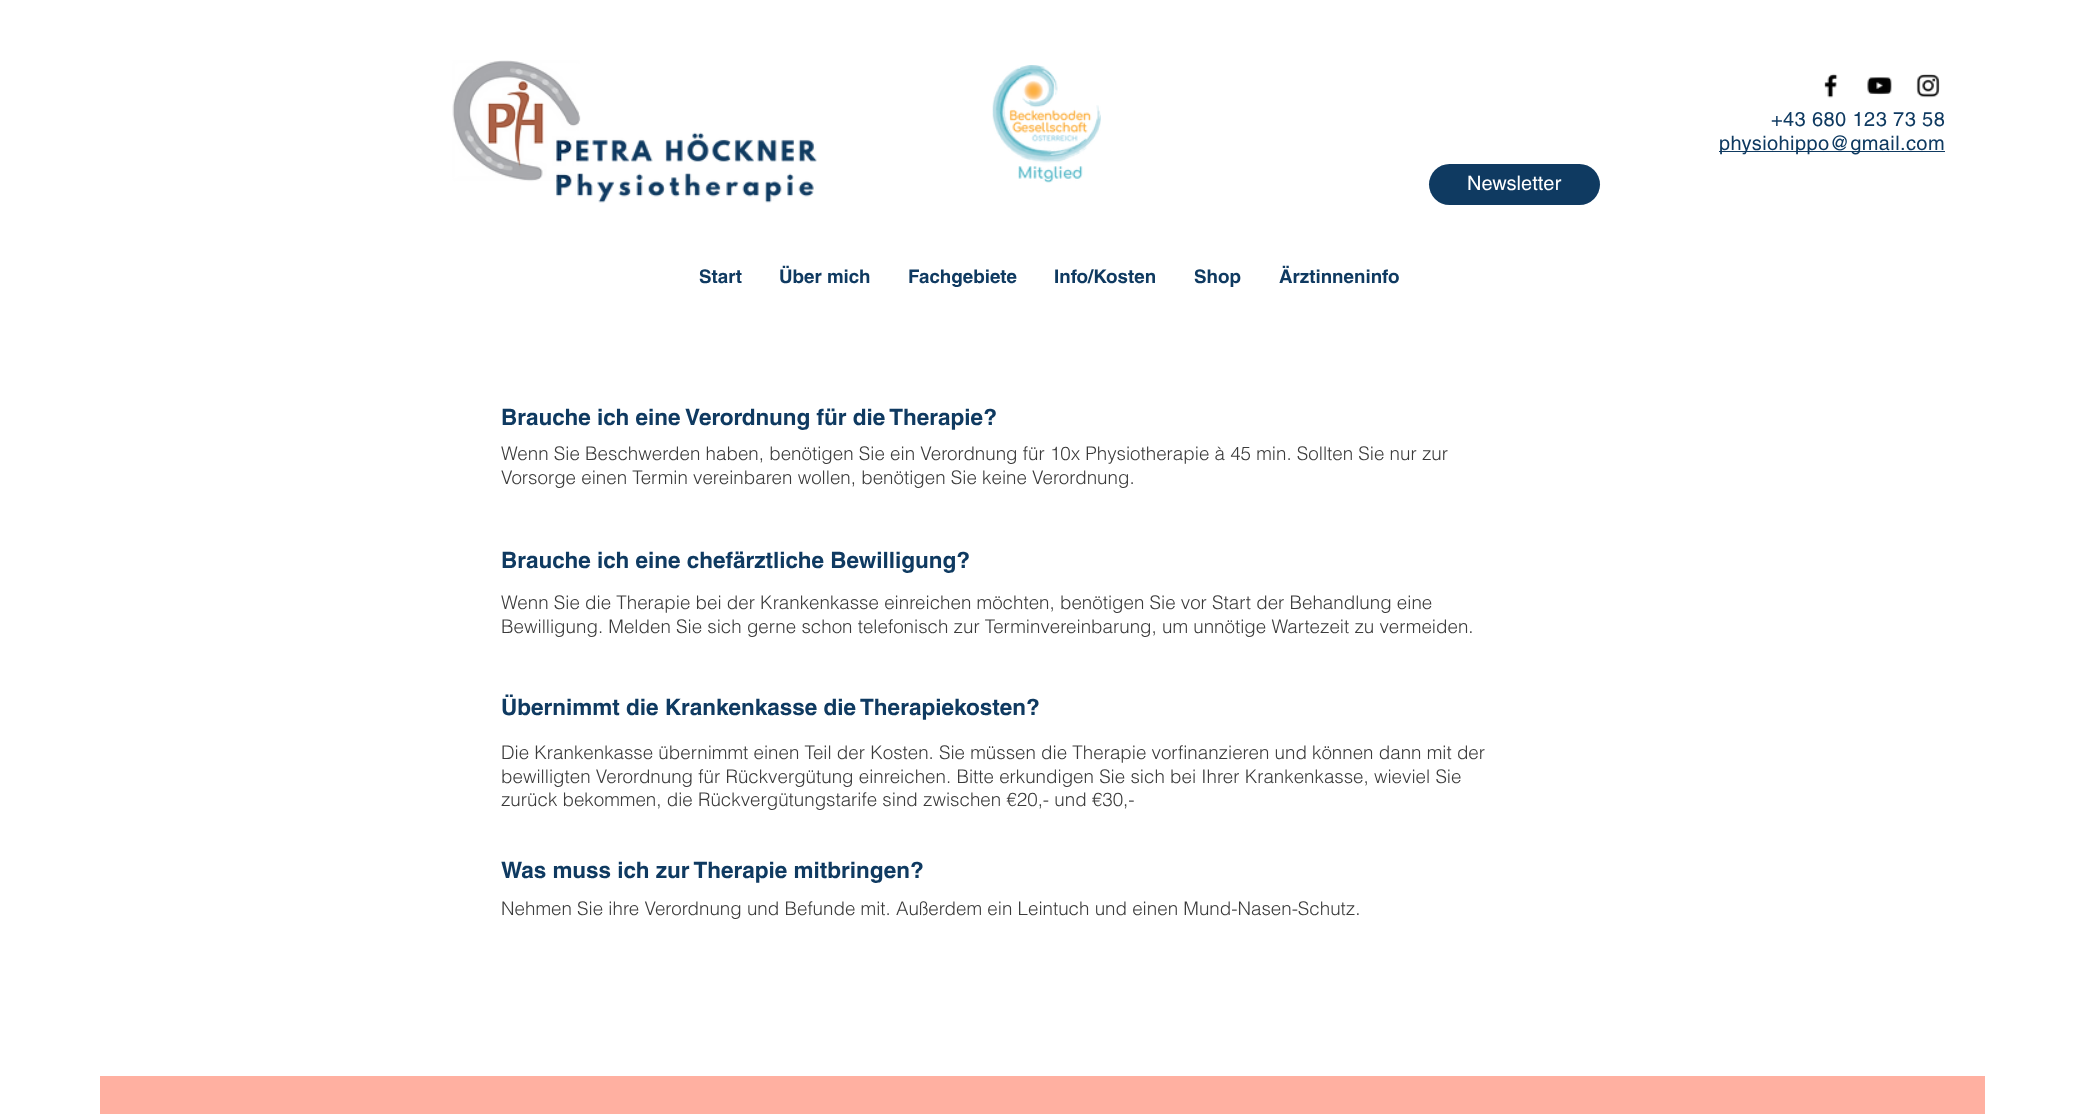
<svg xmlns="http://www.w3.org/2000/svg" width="2084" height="1114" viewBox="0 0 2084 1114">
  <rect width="100%" height="100%" fill="#fff"/>
  <image x="452" y="60" width="365" height="143" href="img/1.png"/>
  <image x="992" y="65" width="109" height="118" href="img/2.png"/>
  <image x="1824" y="73" width="14" height="25" href="img/3.png"/>
  <image x="1867" y="77" width="25" height="18" href="img/4.png"/>
  <image x="1916" y="74" width="24" height="24" href="img/5.png"/>
  <path d="M1719 151h226v1H1719z" fill="#0f3a61"/>
  <rect x="1429" y="164" width="171" height="41" rx="20.5" fill="#0f3a61"/>
  <path d="M100 1076h1885v38H100z" fill="#ffb0a1"/>
  <g font-family="helvetica" font-size="20" letter-spacing="0.4" fill="#0f3a61">
    <text x="1771" y="126">+43 680 123 73 58</text>
    <text x="1719" y="150">physiohippo@gmail.com</text>
  </g>
  <text x="1467" y="190" font-family="helvetica" font-size="20" fill="#fff">Newsletter</text>
  <g font-family="helvetica" font-size="18.75" font-weight="bold" fill="#0f3a61">
    <text x="699" y="283">Start</text>
    <text x="779" y="283">Über mich</text>
    <text x="908" y="283">Fachgebiete</text>
    <text x="1054" y="283">Info/Kosten</text>
    <text x="1194" y="283">Shop</text>
    <text x="1279" y="283">Ärztinneninfo</text>
  </g>
  <text x="501" y="425" font-family="helvetica" font-size="22.5" font-weight="bold" fill="#0f3a61">Brauche ich eine Verordnung für die Therapie?</text>
  <g font-family="helvetica" font-size="18.75" font-weight="300" fill="#3b3b3b">
    <text x="501" y="460">Wenn Sie Beschwerden haben, benötigen Sie ein Verordnung für 10x Physiotherapie à 45 min. Sollten Sie nur zur</text>
    <text x="501" y="484">Vorsorge einen Termin vereinbaren wollen, benötigen Sie keine Verordnung.</text>
  </g>
  <text x="501" y="568" font-family="helvetica" font-size="22.5" font-weight="bold" fill="#0f3a61">Brauche ich eine chefärztliche Bewilligung?</text>
  <g font-family="helvetica" font-size="18.75" font-weight="300" fill="#3b3b3b">
    <text x="501" y="609">Wenn Sie die Therapie bei der Krankenkasse einreichen möchten, benötigen Sie vor Start der Behandlung eine</text>
    <text x="501" y="633">Bewilligung. Melden Sie sich gerne schon telefonisch zur Terminvereinbarung, um unnötige Wartezeit zu vermeiden.</text>
  </g>
  <text x="501" y="715" font-family="helvetica" font-size="22.5" font-weight="bold" fill="#0f3a61">Übernimmt die Krankenkasse die Therapiekosten?</text>
  <g font-family="helvetica" font-size="18.75" font-weight="300" fill="#3b3b3b">
    <text x="501" y="759">Die Krankenkasse übernimmt einen Teil der Kosten. Sie müssen die Therapie vorfinanzieren und können dann mit der</text>
    <text x="501" y="783">bewilligten Verordnung für Rückvergütung einreichen. Bitte erkundigen Sie sich bei Ihrer Krankenkasse, wieviel Sie</text>
    <text x="501" y="806">zurück bekommen, die Rückvergütungstarife sind zwischen €20,- und €30,-</text>
  </g>
  <text x="501" y="878" font-family="helvetica" font-size="22.5" font-weight="bold" fill="#0f3a61">Was muss ich zur Therapie mitbringen?</text>
  <text x="501" y="915" font-family="helvetica" font-size="18.75" font-weight="300" fill="#3b3b3b">Nehmen Sie ihre Verordnung und Befunde mit. Außerdem ein Leintuch und einen Mund-Nasen-Schutz.</text>
</svg>
